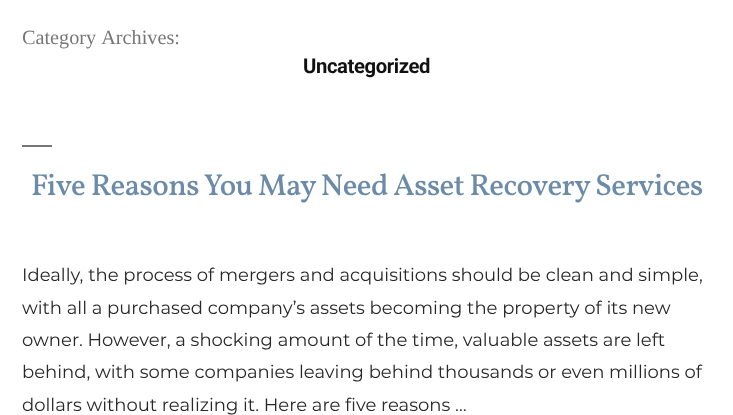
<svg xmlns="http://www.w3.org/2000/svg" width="733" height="415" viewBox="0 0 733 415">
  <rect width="100%" height="100%" fill="#fff"/>
  <path d="M22 145h30v2H22z" fill="#767676"/>
  <text x="22" y="44" word-spacing="1" font-family="Liberation Serif" font-size="20.25" fill="#767676">Category Archives:</text>
  <text x="303" y="73" font-family="Roboto" font-size="20.25" font-weight="bold" letter-spacing="-0.4" fill="#111">Uncategorized</text>
  <text x="31" y="195" font-family="Vollkorn" font-size="30.4" font-weight="500" letter-spacing="-0.6" fill="#6b8ba8">Five Reasons You May Need Asset Recovery Services</text>
  <g font-family="Montserrat" font-size="18" fill="#292728">
    <text x="22" y="281">Ideally, the process of mergers and acquisitions should be clean and simple,</text>
    <text x="22" y="314">with all a purchased company’s assets becoming the property of its new</text>
    <text x="22" y="346">owner. However, a shocking amount of the time, valuable assets are left</text>
    <text x="22" y="378">behind, with some companies leaving behind thousands or even millions of</text>
    <text x="22" y="411">dollars without realizing it. Here are five reasons …</text>
  </g>
</svg>
